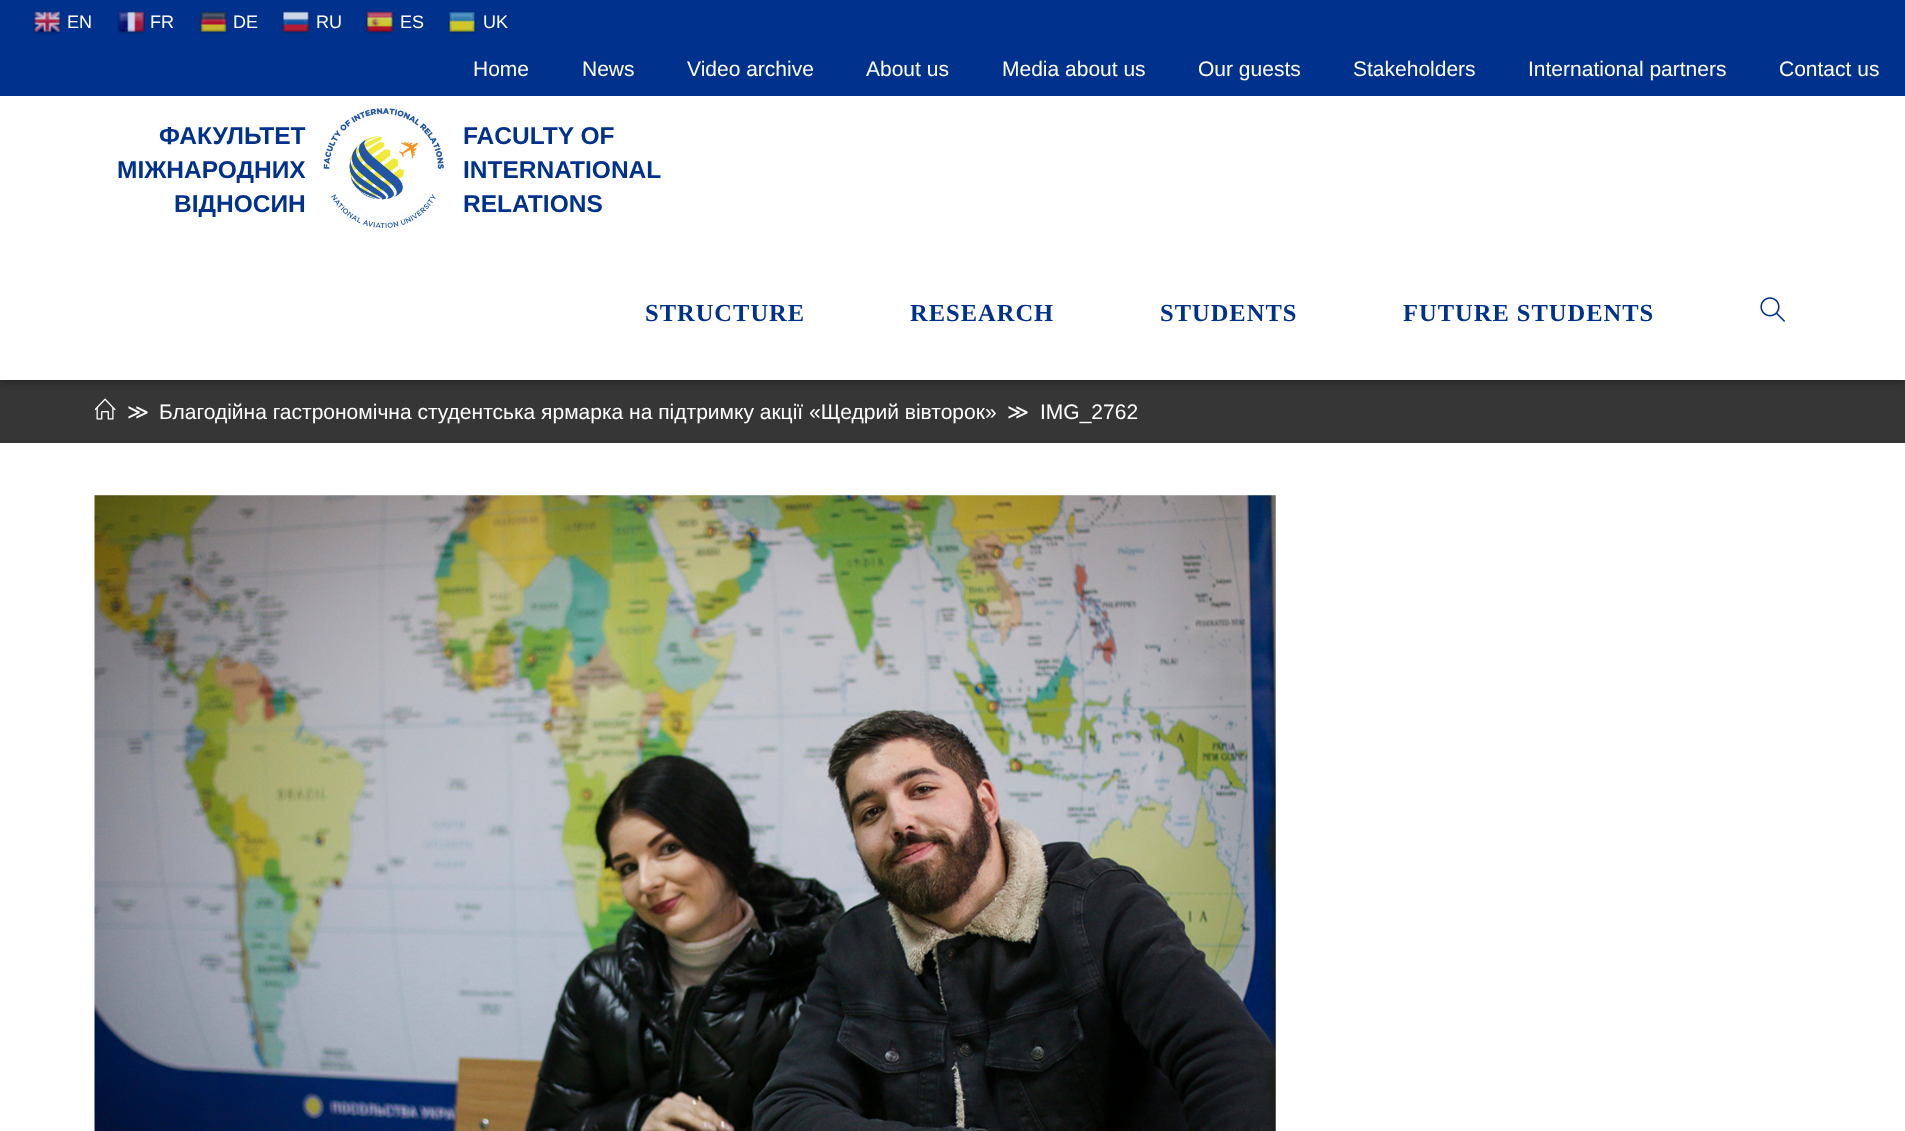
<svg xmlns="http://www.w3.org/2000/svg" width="1905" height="1131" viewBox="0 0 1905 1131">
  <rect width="100%" height="100%" fill="#fff"/>
  <path d="M0 380h1905v63H0z" fill="#373636"/>
  <path d="M0 102h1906v281H0z" fill="#262626" filter="blur(4.5px)"/>
  <path d="M0 0h1905v96H0z" fill="#00318d"/>
  <image x="33" y="10" width="28" height="24" href="img/1.png"/>
  <image x="117" y="10" width="28" height="24" href="img/2.png"/>
  <image x="199" y="10" width="29" height="24" href="img/3.png"/>
  <image x="282" y="10" width="28" height="24" href="img/4.png"/>
  <image x="366" y="10" width="28" height="24" href="img/5.png"/>
  <image x="448" y="10" width="28" height="24" href="img/6.png"/>
  <path d="M0 96h1905v284H0z" fill="#fff"/>
  <image x="323" y="108" width="121" height="120" href="img/7.png"/>
  <image x="1760" y="297" width="25" height="25" href="img/8.png"/>
  <image x="95" y="398" width="21" height="22" href="img/9.png"/>
  <image x="94" y="495" width="1182" height="636" href="img/10.png"/>
  <g font-family="Liberation Sans" font-size="18" fill="#fff">
    <text x="67" y="28">EN</text>
    <text x="150" y="28">FR</text>
    <text x="233" y="28">DE</text>
    <text x="316" y="28">RU</text>
    <text x="400" y="28">ES</text>
    <text x="483" y="28">UK</text>
  </g>
  <g font-family="Liberation Sans" font-size="21" fill="#fff">
    <text x="473" y="76">Home</text>
    <text x="582" y="76">News</text>
    <text x="687" y="76">Video archive</text>
    <text x="866" y="76">About us</text>
    <text x="1002" y="76">Media about us</text>
    <text x="1198" y="76">Our guests</text>
    <text x="1353" y="76">Stakeholders</text>
    <text x="1528" y="76">International partners</text>
    <text x="1779" y="76">Contact us</text>
  </g>
  <g font-family="Liberation Sans" font-size="24.5" font-weight="bold" fill="#00318d">
    <text x="159" y="144">ФАКУЛЬТЕТ</text>
    <text x="117" y="178">МІЖНАРОДНИХ</text>
    <text x="174" y="212">ВІДНОСИН</text>
    <text x="463" y="144">FACULTY OF</text>
    <text x="463" y="178">INTERNATIONAL</text>
    <text x="463" y="212">RELATIONS</text>
  </g>
  <g font-family="Liberation Serif" font-size="24.5" font-weight="bold" letter-spacing="1" fill="#00318d">
    <text x="645" y="321">STRUCTURE</text>
    <text x="910" y="321">RESEARCH</text>
    <text x="1160" y="321">STUDENTS</text>
    <text x="1403" y="321">FUTURE STUDENTS</text>
  </g>
  <text x="127" y="419" font-family="DejaVu Sans" font-size="21" fill="#fff">≫</text>
  <text x="159" y="419" font-family="Liberation Sans" font-size="21" fill="#fff">Благодійна гастрономічна студентська ярмарка на підтримку акції «Щедрий вівторок»</text>
  <text x="1007" y="419" font-family="DejaVu Sans" font-size="21" fill="#fff">≫</text>
  <text x="1040" y="419" font-family="Liberation Sans" font-size="21" fill="#fff">IMG_2762</text>
</svg>
